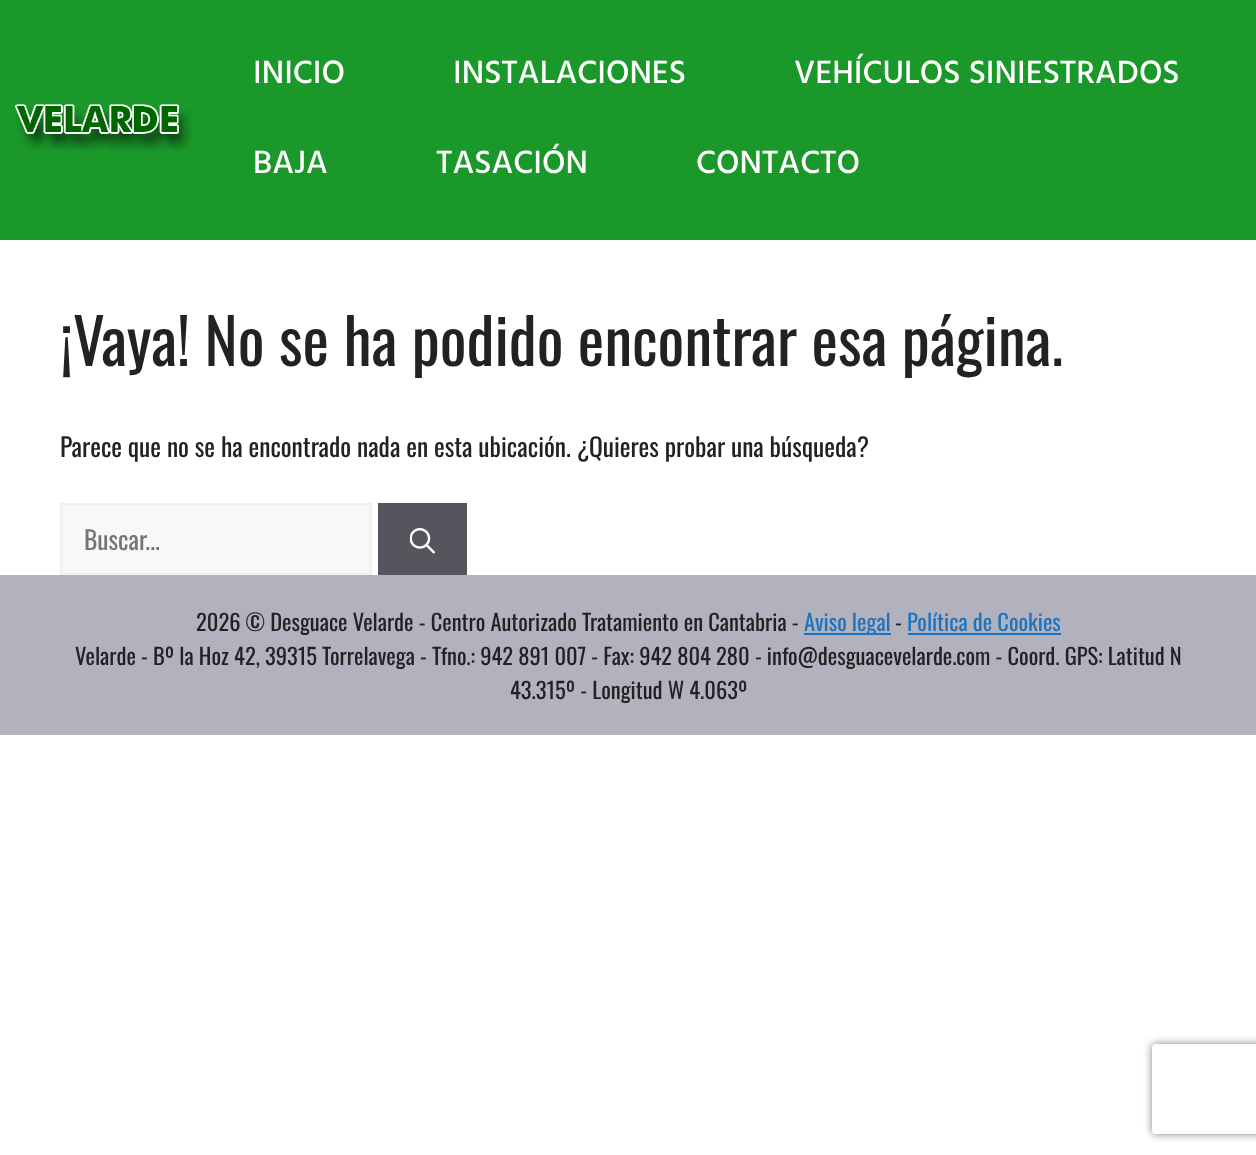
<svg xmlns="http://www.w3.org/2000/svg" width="1256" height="1155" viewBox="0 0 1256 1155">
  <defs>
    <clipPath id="clip1"><path d="M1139 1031H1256V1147H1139ZM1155 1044H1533C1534.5 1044 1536 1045.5 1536 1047V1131C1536 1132.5 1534.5 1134 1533 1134H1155C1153.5 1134 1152 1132.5 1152 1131V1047C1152 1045.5 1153.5 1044 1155 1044Z" clip-rule="evenodd"/></clipPath>
  </defs>
  <rect width="100%" height="100%" fill="#fff"/>
  <path d="M0 0h1256v240H0z" fill="#1a9829"/>
  <image x="14" y="104" width="178" height="46" href="img/1.png"/>
  <path d="M61 504h310v70H61z" fill="#f7f8f9" stroke="#f0f0f0" stroke-width="2"/>
  <path d="M378 503h89v72H378z" fill="#55555e"/>
  <image x="410" y="528" width="25" height="26" href="img/2.png"/>
  <path d="M0 575h1256v160H0z" fill="#b2b2be"/>
  <path d="M804 633h87v2H804z" fill="#1e73be"/>
  <path d="M908 633h153v2H908z" fill="#1e73be"/>
  <g clip-path="url(#clip1)">
    <rect x="1152" y="1044" width="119" height="90" rx="3" fill="#808080" filter="blur(4px)"/>
  </g>
  <g font-family="Hind" font-size="33" font-weight="500" fill="#fff">
    <text x="253" y="83">INICIO</text>
    <text x="453" y="83">INSTALACIONES</text>
    <text x="794" y="83">VEHÍCULOS SINIESTRADOS</text>
    <text x="253" y="173">BAJA</text>
    <text x="436" y="173">TASACIÓN</text>
    <text x="696" y="173">CONTACTO</text>
  </g>
  <text x="60" y="366" font-family="Oswald" font-size="63" fill="#222">¡Vaya! No se ha podido encontrar esa página.</text>
  <text x="60" y="457" font-family="Oswald" font-size="25.5" fill="#222">Parece que no se ha encontrado nada en esta ubicación. ¿Quieres probar una búsqueda?</text>
  <text x="84" y="550" font-family="Oswald" font-size="25.5" fill="#757575">Buscar...</text>
  <text x="196" y="631" font-family="Oswald" font-size="22.5" fill="#222">2026 © Desguace Velarde - Centro Autorizado Tratamiento en Cantabria -</text>
  <text x="804" y="631" font-family="Oswald" font-size="22.5" fill="#1e73be">Aviso legal</text>
  <text x="895" y="631" font-family="Oswald" font-size="22.5" fill="#222">-</text>
  <text x="907" y="631" font-family="Oswald" font-size="22.5" fill="#1e73be">Política de Cookies</text>
  <g font-family="Oswald" font-size="22.5" fill="#222">
    <text x="75" y="665">Velarde - Bº la Hoz 42, 39315 Torrelavega - Tfno.: 942 891 007 - Fax: 942 804 280 - info@desguacevelarde.com - Coord. GPS: Latitud N</text>
    <text x="510" y="699">43.315º - Longitud W 4.063º</text>
  </g>
</svg>
